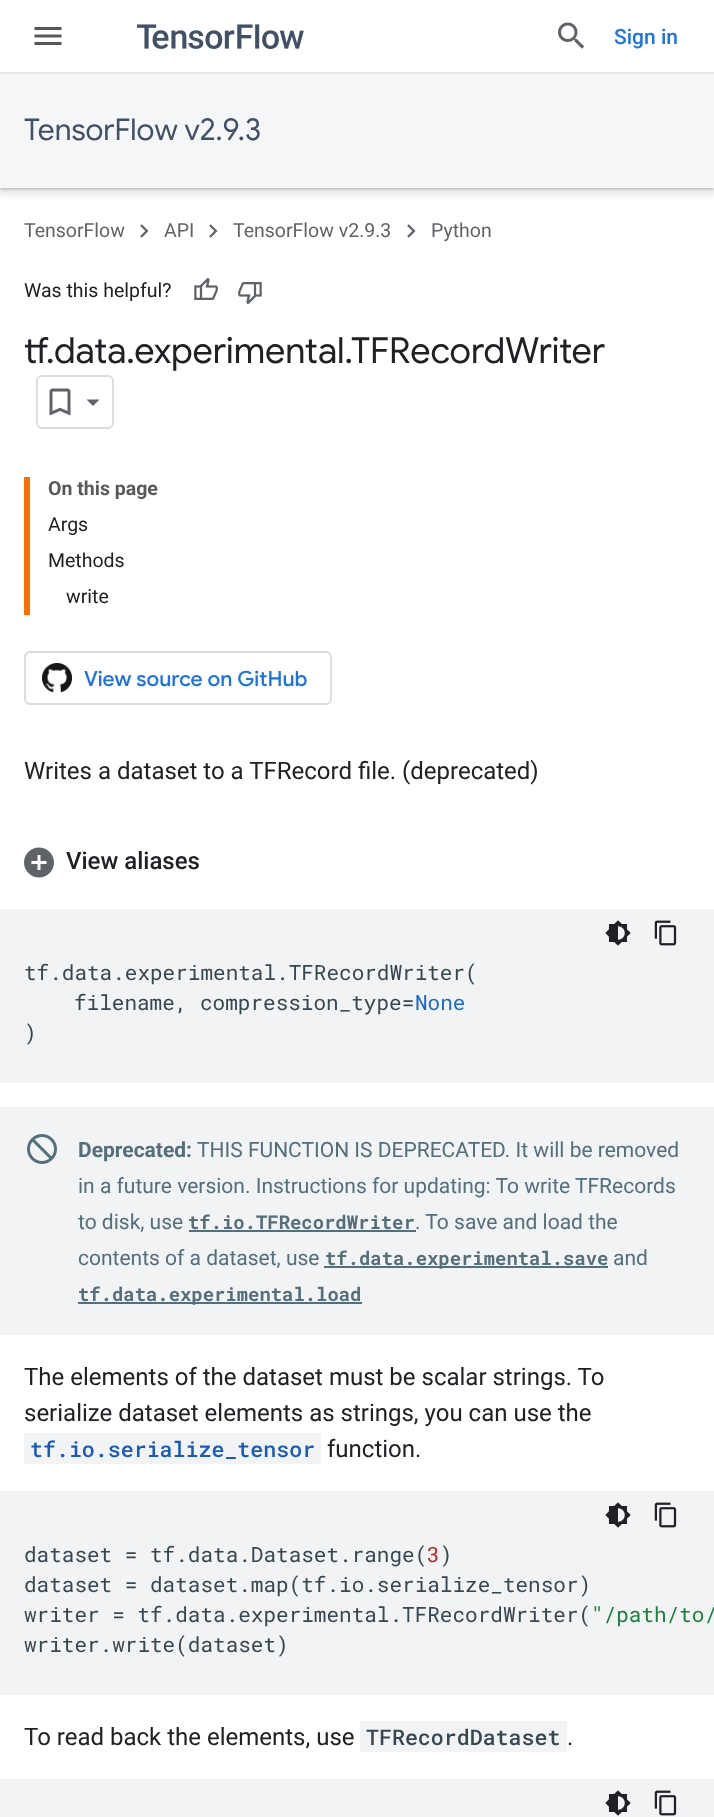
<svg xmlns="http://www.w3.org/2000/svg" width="714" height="1817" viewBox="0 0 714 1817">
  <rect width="100%" height="100%" fill="#fff"/>
  <path d="M-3 74h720v120H-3z" fill="#3c404326" filter="blur(4.5px)"/>
  <path d="M0 75h714v114H0z" fill="#3c40434d" filter="blur(1.5px)"/>
  <path d="M0 68h714v4H0z" fill="#fff"/>
  <path d="M0 72h714v2H0z" fill="#e6e6e6"/>
  <image x="34" y="27" width="28" height="18" href="img/1.png"/>
  <image x="136" y="24" width="168" height="25" href="img/2.png"/>
  <image x="558" y="22" width="27" height="27" href="img/3.png"/>
  <path d="M0 74h714v114H0z" fill="#f5f6f7"/>
  <image x="140" y="224" width="9" height="14" href="img/4.png"/>
  <image x="209" y="224" width="9" height="14" href="img/4.png"/>
  <image x="407" y="224" width="9" height="14" href="img/4.png"/>
  <image x="194" y="278" width="24" height="22" href="img/5.png"/>
  <image x="238" y="282" width="24" height="23" href="img/6.png"/>
  <rect x="37" y="376" width="76" height="52" rx="5" fill="none" stroke="#dadce0" stroke-width="2"/>
  <image x="49" y="388" width="22" height="28" href="img/7.png"/>
  <path d="M86.5 399.5H99.5L93 406Z" fill="#5f6368"/>
  <path d="M24 477h6v138H24z" fill="#ff6f00"/>
  <rect x="25" y="652" width="306" height="52" rx="5" fill="none" stroke="#dadce0" stroke-width="2"/>
  <image x="42" y="663" width="30" height="30" href="img/8.png"/>
  <image x="24" y="847" width="30" height="31" href="img/9.png"/>
  <path d="M0 909h714v174H0z" fill="#f1f3f4"/>
  <image x="605" y="920" width="26" height="26" href="img/10.png"/>
  <image x="654" y="920" width="23" height="26" href="img/11.png"/>
  <path d="M0 1107h714v228H0z" fill="#f1f3f4"/>
  <image x="27" y="1134" width="30" height="30" href="img/12.png"/>
  <path d="M189 1230h227v2H189z" fill="#546e7a"/>
  <path d="M324 1266h284v2H324z" fill="#546e7a"/>
  <path d="M78 1302h284v2H78z" fill="#546e7a"/>
  <path d="M24 1433h297v31H24z" fill="#f1f3f4"/>
  <path d="M0 1491h714v204H0z" fill="#f1f3f4"/>
  <image x="605" y="1502" width="26" height="26" href="img/10.png"/>
  <image x="654" y="1502" width="23" height="26" href="img/11.png"/>
  <path d="M360 1721h207v31H360z" fill="#f1f3f4"/>
  <path d="M0 1779h714v38H0z" fill="#f1f3f4"/>
  <image x="605" y="1790" width="26" height="26" href="img/10.png"/>
  <image x="654" y="1790" width="23" height="26" href="img/11.png"/>
  <text x="614" y="44" font-family="Roboto" font-size="21" font-weight="500" fill="#1a73e8">Sign in</text>
  <text x="24" y="140" font-family="Google Sans" font-size="30" fill="#425066">TensorFlow v2.9.3</text>
  <g font-family="Roboto" font-size="19.5" fill="#5f6368">
    <text x="24" y="237">TensorFlow</text>
    <text x="164" y="237">API</text>
    <text x="233" y="237">TensorFlow v2.9.3</text>
    <text x="431" y="237">Python</text>
  </g>
  <text x="24" y="297" font-family="Roboto" font-size="19.5" fill="#202124">Was this helpful?</text>
  <g font-family="Google Sans" font-size="36" fill="#202124">
    <text x="24" y="363">tf</text>
    <text x="46" y="363">.data.experimental.TFRecordWriter</text>
  </g>
  <text x="48" y="495" font-family="Roboto" font-size="19.5" font-weight="bold" fill="#595959">On this page</text>
  <g font-family="Roboto" font-size="19.5" fill="#202124">
    <text x="48" y="531">Args</text>
    <text x="48" y="567">Methods</text>
    <text x="66" y="603">write</text>
  </g>
  <text x="84" y="686" font-family="Google Sans" font-size="21" font-weight="500" fill="#1a73e8">View source on GitHub</text>
  <text x="24" y="779" font-family="Roboto" font-size="24" fill="#202124">Writes a dataset to a TFRecord file. (deprecated)</text>
  <text x="66" y="869" font-family="Roboto" font-size="24" font-weight="500" fill="#202124">View aliases</text>
  <g font-family="Roboto Mono" font-size="21" fill="#37474f">
    <text x="24" y="980">tf.data.experimental.TFRecordWriter(</text>
    <text x="74" y="1010">filename, compression_type=</text>
  </g>
  <text x="415" y="1010" font-family="Roboto Mono" font-size="21" fill="#1967d2">None</text>
  <text x="24" y="1040" font-family="Roboto Mono" font-size="21" fill="#37474f">)</text>
  <text x="78" y="1157" font-family="Roboto" font-size="21" font-weight="bold" fill="#546e7a">Deprecated:</text>
  <g font-family="Roboto" font-size="21" fill="#546e7a">
    <text x="197" y="1157">THIS FUNCTION IS DEPRECATED. It will be removed</text>
    <text x="78" y="1193">in a future version. Instructions for updating: To write TFRecords</text>
    <text x="78" y="1229">to disk, use</text>
  </g>
  <text x="188" y="1229" font-family="Roboto Mono" font-size="18.9" font-weight="bold" fill="#546e7a">tf.io.TFRecordWriter</text>
  <g font-family="Roboto" font-size="21" fill="#546e7a">
    <text x="415" y="1229">. To save and load the</text>
    <text x="78" y="1265">contents of a dataset, use</text>
  </g>
  <text x="325" y="1265" font-family="Roboto Mono" font-size="18.9" font-weight="bold" fill="#546e7a">tf.data.experimental.save</text>
  <text x="613" y="1265" font-family="Roboto" font-size="21" fill="#546e7a">and</text>
  <text x="78" y="1301" font-family="Roboto Mono" font-size="18.9" font-weight="bold" fill="#546e7a">tf.data.experimental.load</text>
  <g font-family="Roboto" font-size="24" fill="#202124">
    <text x="24" y="1385">The elements of the dataset must be scalar strings. To</text>
    <text x="24" y="1421">serialize dataset elements as strings, you can use the</text>
  </g>
  <text x="30" y="1457" font-family="Roboto Mono" font-size="21.6" font-weight="500" fill="#185abc">tf.io.serialize_tensor</text>
  <text x="327" y="1457" font-family="Roboto" font-size="24" fill="#202124">function.</text>
  <text x="24" y="1562" font-family="Roboto Mono" font-size="21" fill="#37474f">dataset = tf.data.Dataset.range( )</text>
  <text x="427" y="1562" font-family="Roboto Mono" font-size="21" fill="#c5221f">3</text>
  <g font-family="Roboto Mono" font-size="21" fill="#37474f">
    <text x="24" y="1592">dataset = dataset.map(tf.io.serialize_tensor)</text>
    <text x="24" y="1622">writer = tf.data.experimental.TFRecordWriter(</text>
  </g>
  <text x="591" y="1622" font-family="Roboto Mono" font-size="21" fill="#188038">"/path/to/</text>
  <text x="24" y="1652" font-family="Roboto Mono" font-size="21" fill="#37474f">writer.write(dataset)</text>
  <text x="24" y="1745" font-family="Roboto" font-size="24" fill="#202124">To read back the elements, use</text>
  <text x="366" y="1745" font-family="Roboto Mono" font-size="21.6" font-weight="500" fill="#37474f">TFRecordDataset</text>
  <text x="567" y="1745" font-family="Roboto" font-size="24" fill="#202124">.</text>
</svg>
